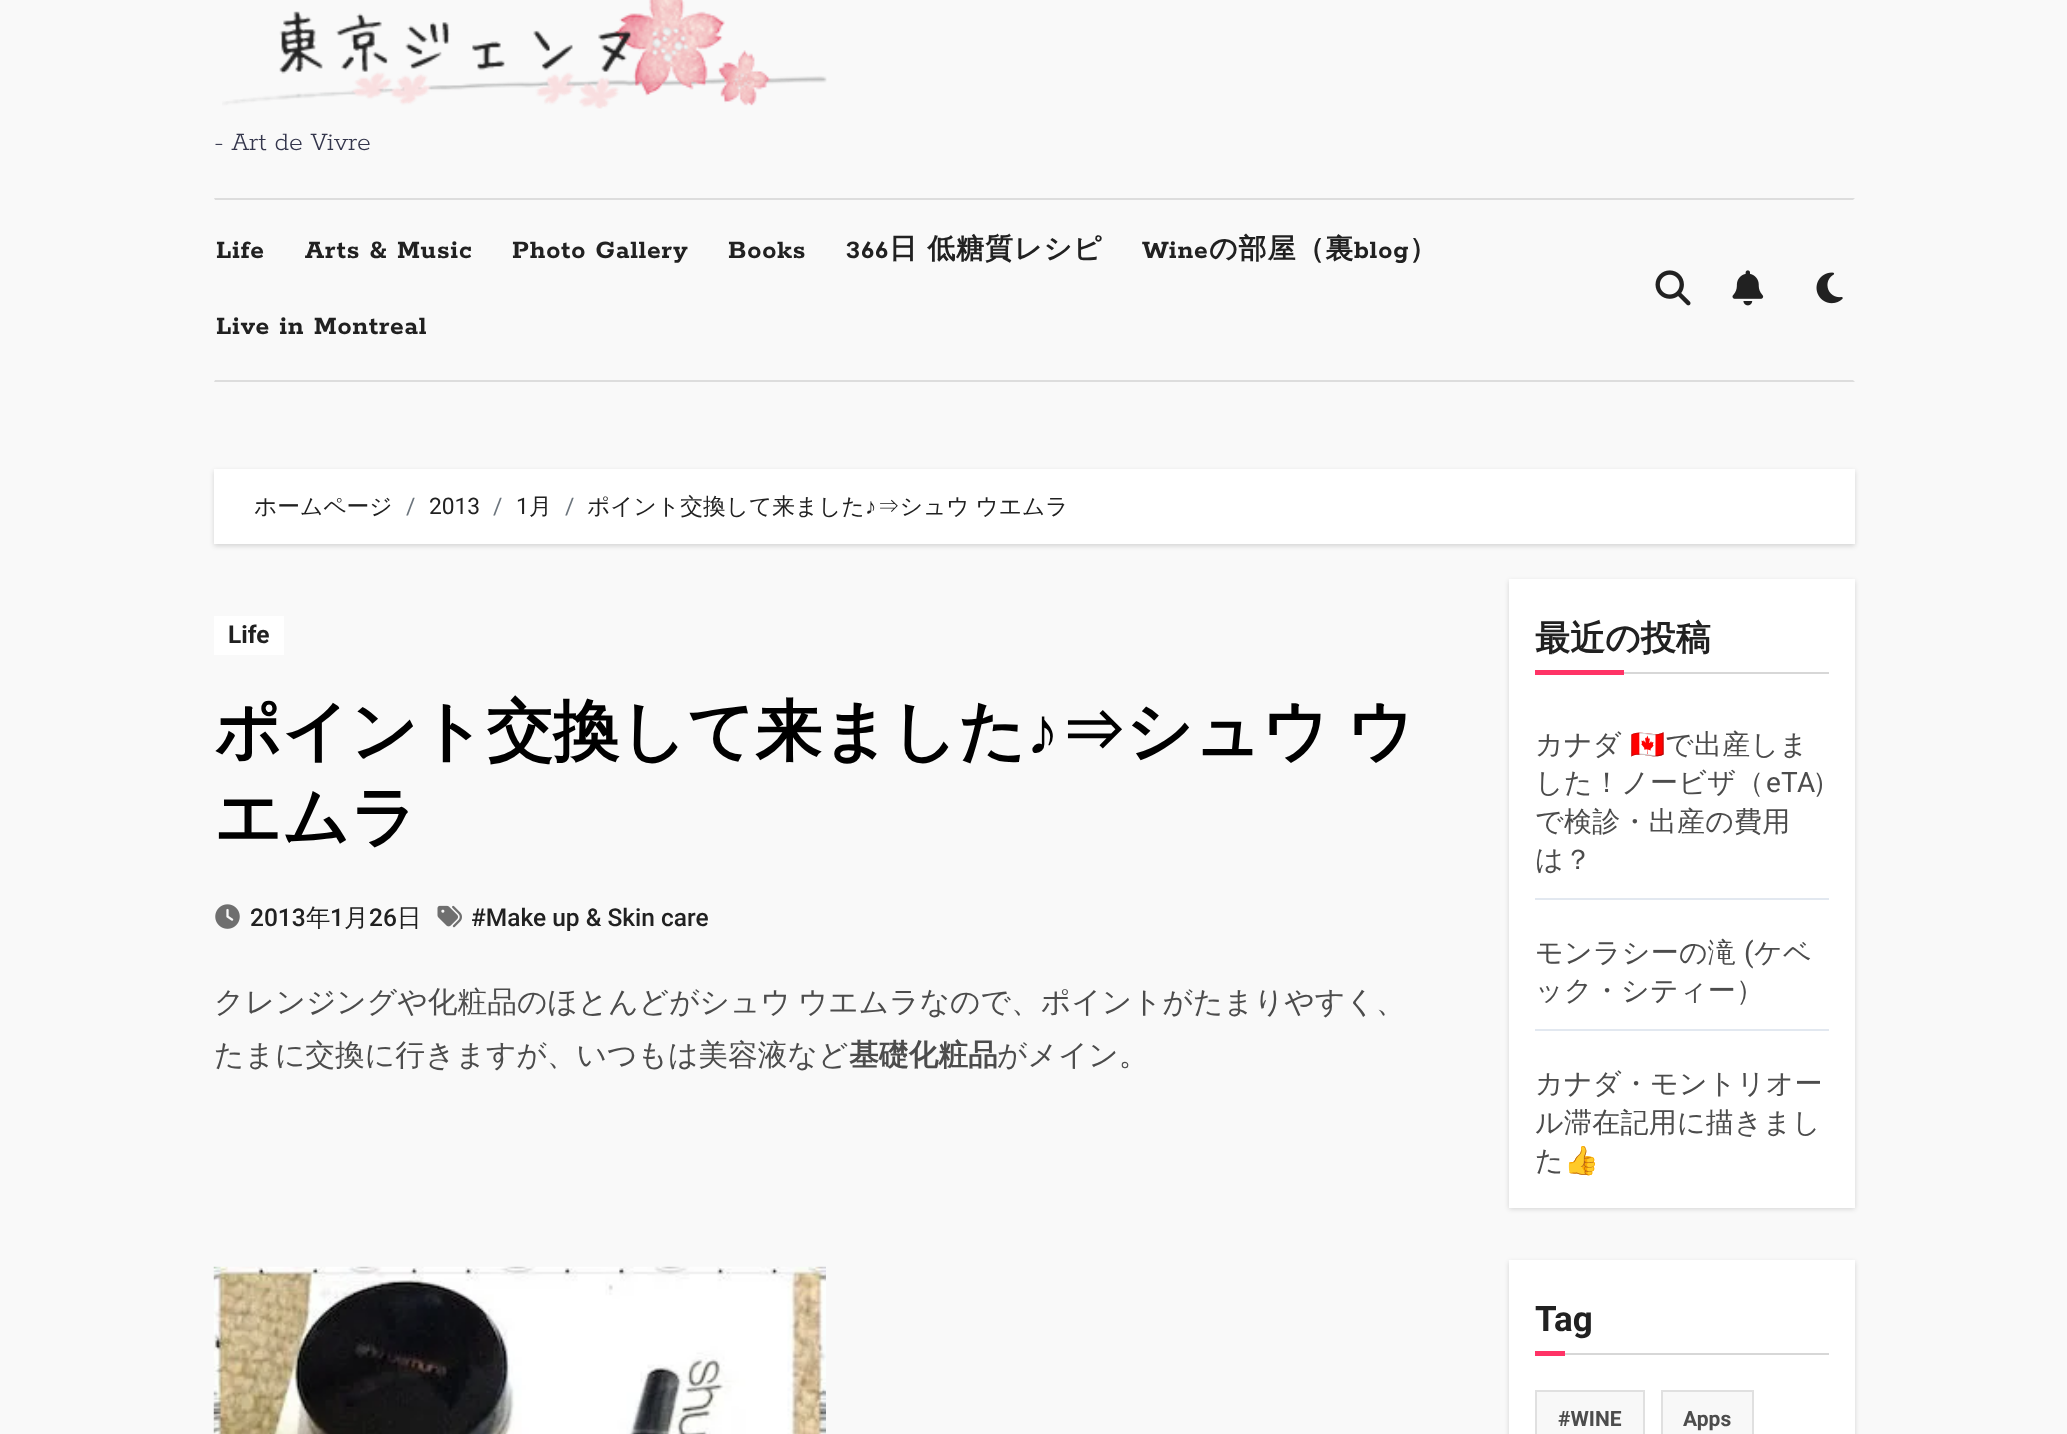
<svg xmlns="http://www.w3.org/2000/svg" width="2067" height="1434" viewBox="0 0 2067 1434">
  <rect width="100%" height="100%" fill="#f9f9f9"/>
  <image x="222" y="0" width="605" height="109" href="img/1.png"/>
  <path d="M214 198H1855L1853 200H215Z" fill="#ddd"/>
  <path d="M1855 382H214L215 380H1853Z" fill="#ddd"/>
  <image x="1655" y="270" width="36" height="36" href="img/2.png"/>
  <image x="1732" y="270" width="32" height="36" href="img/3.png"/>
  <image x="1816" y="272" width="27" height="32" href="img/4.png"/>
  <path d="M214 471h1641v75H214z" fill="#00000026" filter="blur(2.5px)"/>
  <path d="M214 469h1641v75H214z" fill="#fff"/>
  <path d="M214 616h70v39H214z" fill="#fff"/>
  <image x="215" y="904" width="25" height="25" href="img/5.png"/>
  <image x="437" y="905" width="25" height="23" href="img/6.png"/>
  <image x="213" y="1266" width="613" height="168" href="img/7.png"/>
  <path d="M1509 581h346v628H1509z" fill="#00000026" filter="blur(2.5px)"/>
  <path d="M1509 579h346v629H1509z" fill="#fff"/>
  <path d="M1624 672h205v2H1624z" fill="#d7d7d7"/>
  <path d="M1535 670h89v5H1535z" fill="#f36"/>
  <path d="M1535 898h294v2H1535z" fill="#e2e8f0"/>
  <path d="M1535 1029h294v2H1535z" fill="#e2e8f0"/>
  <path d="M1509 1262h346v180H1509z" fill="#00000026" filter="blur(2.5px)"/>
  <path d="M1509 1260h346v174H1509z" fill="#fff"/>
  <path d="M1565 1353h264v2H1565z" fill="#d7d7d7"/>
  <path d="M1535 1351h30v5H1535z" fill="#f36"/>
  <path d="M1536 1391h108v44H1536z" fill="#f8f8f8" stroke="#e0e0e0" stroke-width="2"/>
  <path d="M1662 1391h91v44H1662z" fill="#f8f8f8" stroke="#e0e0e0" stroke-width="2"/>
  <text x="214" y="150" font-family="Rokkitt" font-size="28" font-weight="300" fill="#34364c">- Art de Vivre</text>
  <g font-family="Rokkitt" font-size="28" font-weight="bold" letter-spacing="0.9" fill="#212121">
    <text x="216" y="258">Life</text>
    <text x="305" y="258">Arts &amp; Music</text>
    <text x="512" y="258">Photo Gallery</text>
    <text x="728" y="258">Books</text>
    <text x="846" y="258">366</text>
  </g>
  <text x="889" y="258" font-family="WenQuanYi Zen Hei" font-size="28" font-weight="bold" letter-spacing="0.9" fill="#212121">日 低糖質レシピ</text>
  <text x="1142" y="258" font-family="Rokkitt" font-size="28" font-weight="bold" letter-spacing="0.9" fill="#212121">Wine</text>
  <text x="1209" y="258" font-family="WenQuanYi Zen Hei" font-size="28" font-weight="bold" letter-spacing="0.9" fill="#212121">の部屋（裏</text>
  <text x="1354" y="258" font-family="Rokkitt" font-size="28" font-weight="bold" letter-spacing="0.9" fill="#212121">blog</text>
  <text x="1409" y="258" font-family="WenQuanYi Zen Hei" font-size="28" font-weight="bold" letter-spacing="0.9" fill="#212121">）</text>
  <text x="216" y="334" font-family="Rokkitt" font-size="28" font-weight="bold" letter-spacing="0.9" fill="#212121">Live in Montreal</text>
  <text x="254" y="514" font-family="WenQuanYi Zen Hei" font-size="22.75" font-weight="500" fill="#212121">ホームページ</text>
  <text x="406" y="514" font-family="Roboto" font-size="22.75" fill="#6c757d">/</text>
  <text x="429" y="514" font-family="'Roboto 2'" font-size="22.75" fill="#212121">2013</text>
  <text x="493" y="514" font-family="Roboto" font-size="22.75" fill="#6c757d">/</text>
  <text x="516" y="514" font-family="'Roboto 2'" font-size="22.75" fill="#212121">1</text>
  <text x="529" y="514" font-family="WenQuanYi Zen Hei" font-size="22.75" font-weight="500" fill="#212121">月</text>
  <text x="565" y="514" font-family="Roboto" font-size="22.75" fill="#6c757d">/</text>
  <text x="587" y="514" font-family="WenQuanYi Zen Hei" font-size="22.75" font-weight="500" fill="#212121">ポイント交換して来ました</text>
  <text x="865" y="514" font-family="Liberation Sans" font-size="22.75" fill="#212121">♪</text>
  <text x="877" y="514" word-spacing="-1" font-family="WenQuanYi Zen Hei" font-size="22.75" font-weight="500" fill="#212121">⇒シュウ ウエムラ</text>
  <text x="228" y="643" font-family="Roboto" font-size="24.5" font-weight="bold" fill="#212121">Life</text>
  <text x="214" y="754" font-family="WenQuanYi Zen Hei" font-size="66.5" font-weight="bold" fill="#000">ポイント交換して来ました</text>
  <text x="1026" y="754" font-family="Liberation Sans" font-size="66.5" font-weight="bold" fill="#000">♪</text>
  <g font-family="WenQuanYi Zen Hei" font-size="66.5" font-weight="bold" fill="#000">
    <text x="1059" y="754" word-spacing="-3">⇒シュウ ウ</text>
    <text x="214" y="840">エムラ</text>
  </g>
  <text x="250" y="926" font-family="Roboto" font-size="24.5" font-weight="500" fill="#212121">2013</text>
  <text x="306" y="926" font-family="WenQuanYi Zen Hei" font-size="24.5" font-weight="500" fill="#212121">年</text>
  <text x="330" y="926" font-family="Roboto" font-size="24.5" font-weight="500" fill="#212121">1</text>
  <text x="344" y="926" font-family="WenQuanYi Zen Hei" font-size="24.5" font-weight="500" fill="#212121">月</text>
  <text x="369" y="926" font-family="Roboto" font-size="24.5" font-weight="500" fill="#212121">26</text>
  <text x="397" y="926" font-family="WenQuanYi Zen Hei" font-size="24.5" font-weight="500" fill="#212121">日</text>
  <text x="471" y="926" font-family="Roboto" font-size="24.5" font-weight="500" fill="#212121">#Make up &amp; Skin care</text>
  <text x="214" y="1012" font-family="Noto Sans" font-size="29.75" fill="#4c4c4c">ク</text>
  <g font-family="WenQuanYi Zen Hei" font-size="29.75" font-weight="500" fill="#4c4c4c">
    <text x="245" y="1012" word-spacing="-2">レンジングや化粧品のほとんどがシュウ ウエムラなので、ポイントがたまりやすく、</text>
    <text x="214" y="1065">たまに交換に行きますが、いつもは美容液など</text>
  </g>
  <text x="849" y="1065" font-family="WenQuanYi Zen Hei" font-size="29.75" font-weight="bold" fill="#4c4c4c">基礎化粧品</text>
  <text x="997" y="1065" font-family="WenQuanYi Zen Hei" font-size="29.75" font-weight="500" fill="#4c4c4c">がメイン。</text>
  <text x="1535" y="650" font-family="WenQuanYi Zen Hei" font-size="35" font-weight="bold" fill="#212121">最近の投稿</text>
  <text x="1535" y="754" font-family="WenQuanYi Zen Hei" font-size="28" font-weight="500" letter-spacing="0.25" fill="#4c4c4c">カナダ</text>
  <text x="1630" y="754" font-family="Noto Color Emoji" font-size="28" letter-spacing="0.25" fill="#4c4c4c">🇨🇦</text>
  <g font-family="WenQuanYi Zen Hei" font-size="28" font-weight="500" letter-spacing="0.25" fill="#4c4c4c">
    <text x="1665" y="754">で出産しま</text>
    <text x="1535" y="792">した！ノービザ（</text>
  </g>
  <text x="1766" y="792" font-family="'Roboto 2'" font-size="28" letter-spacing="0.25" fill="#4c4c4c">eTA</text>
  <g font-family="WenQuanYi Zen Hei" font-size="28" font-weight="500" letter-spacing="0.25" fill="#4c4c4c">
    <text x="1815" y="792">)</text>
    <text x="1535" y="831">で検診・出産の費用</text>
    <text x="1535" y="869">は？</text>
    <text x="1535" y="962">モンラシーの滝</text>
  </g>
  <text x="1744" y="962" font-family="Roboto" font-size="28" letter-spacing="0.25" fill="#4c4c4c">(</text>
  <g font-family="WenQuanYi Zen Hei" font-size="28" font-weight="500" letter-spacing="0.25" fill="#4c4c4c">
    <text x="1754" y="962">ケベ</text>
    <text x="1535" y="1000">ック・シティー）</text>
    <text x="1535" y="1093">カナダ・モントリオー</text>
    <text x="1535" y="1132">ル滞在記用に描きまし</text>
    <text x="1535" y="1170">た</text>
  </g>
  <text x="1564" y="1170" font-family="Noto Color Emoji" font-size="28" letter-spacing="0.25" fill="#4c4c4c">👍</text>
  <text x="1535" y="1331" font-family="Roboto" font-size="35" font-weight="bold" fill="#212121">Tag</text>
  <g font-family="Roboto" font-size="21" font-weight="bold" fill="#4c4c4c">
    <text x="1558" y="1426">#WINE</text>
    <text x="1683" y="1426">Apps</text>
  </g>
</svg>
